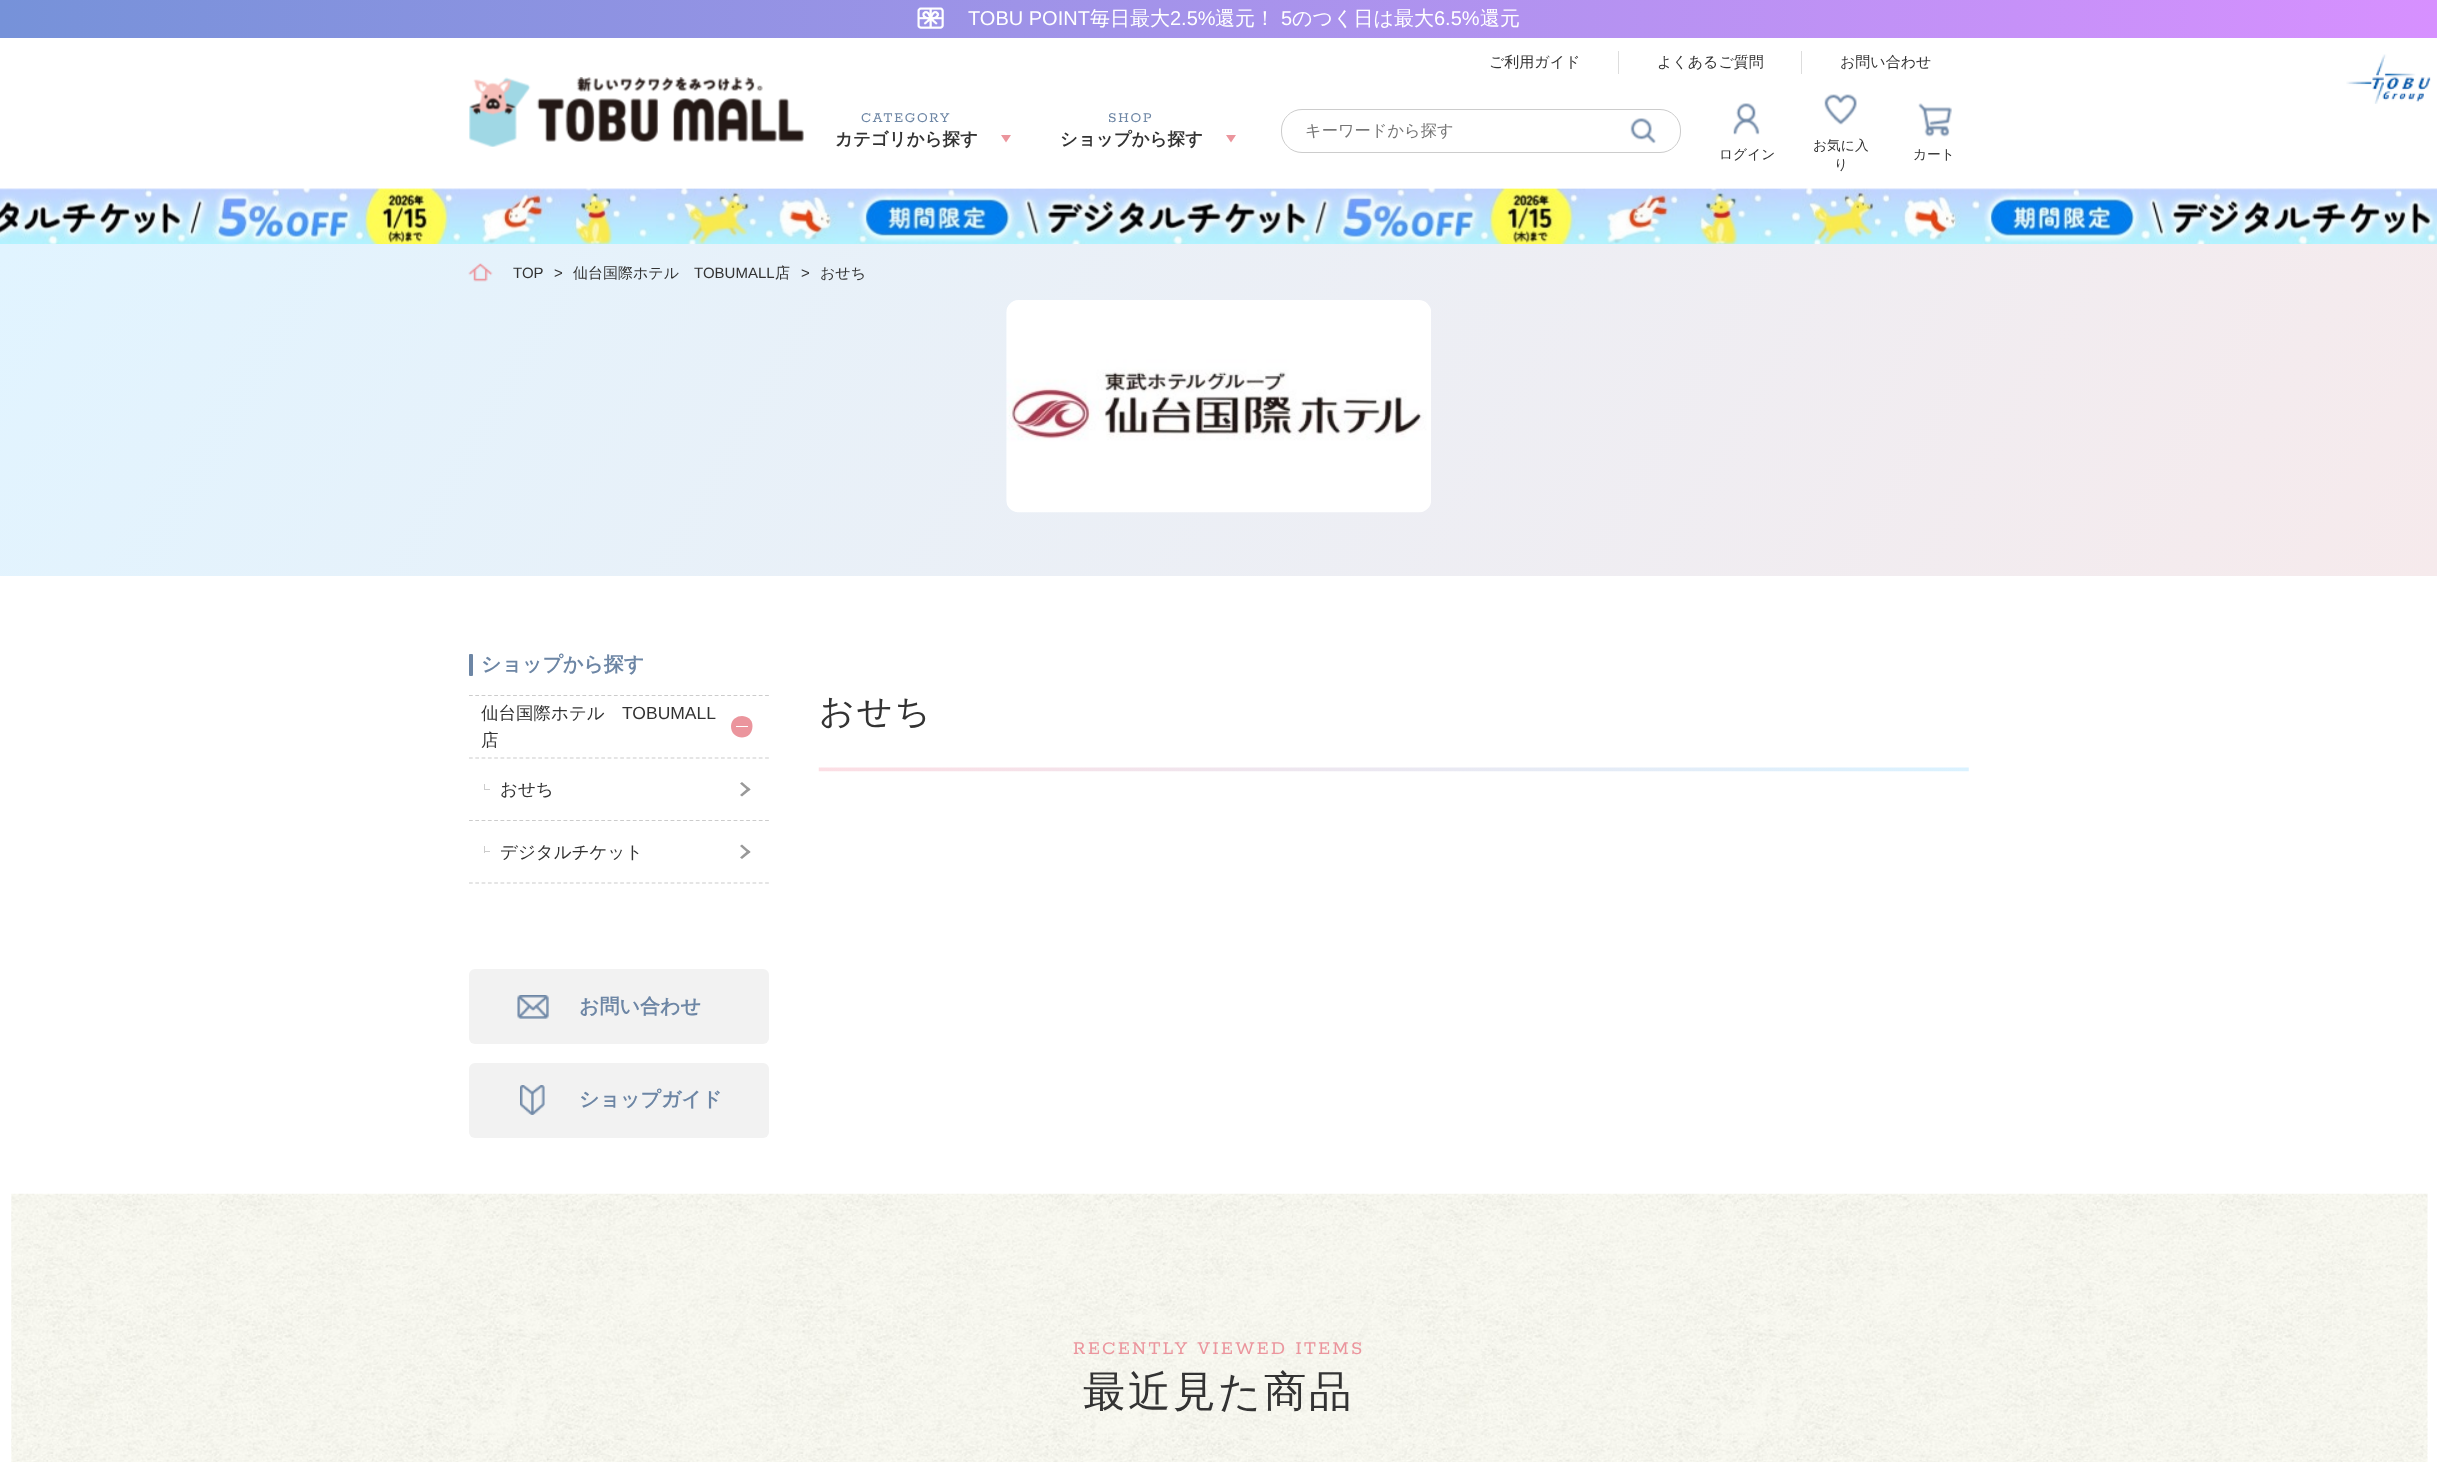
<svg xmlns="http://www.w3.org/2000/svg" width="2437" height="1462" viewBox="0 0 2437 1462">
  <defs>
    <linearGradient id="g1" gradientUnits="userSpaceOnUse" x1="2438" y1="19" x2="0" y2="19"><stop offset="0" stop-color="#d790ff"/><stop offset="0.5" stop-color="#a693eb"/><stop offset="1" stop-color="#7692d9"/></linearGradient>
    <linearGradient id="g2" gradientUnits="userSpaceOnUse" x1="233" y1="-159" x2="2205" y2="979"><stop offset="0" stop-color="#e1f4ff"/><stop offset="1" stop-color="#f6eaec"/></linearGradient>
  </defs>
  <rect width="100%" height="100%" fill="#fff"/>
  <path d="M0 0h2437v38H0z" fill="url(#g1)"/>
  <image x="917" y="7" width="27" height="22" href="img/1.png"/>
  <image x="469" y="77" width="335" height="70" href="img/2.png"/>
  <path d="M1618 51h1v23H1618z" fill="#ddd"/>
  <path d="M1801 51h1v23H1801z" fill="#ddd"/>
  <path d="M1001 135H1011L1006 142.5Z" fill="#eb959d"/>
  <path d="M1226 135H1236L1231 142.5Z" fill="#eb959d"/>
  <rect x="1281.5" y="109.5" width="399" height="43" rx="20.5" fill="none" stroke="#ccc"/>
  <image x="1630" y="118" width="26" height="26" href="img/3.png"/>
  <image x="1733" y="103" width="27" height="32" href="img/4.png"/>
  <image x="1824" y="94" width="33" height="31" href="img/5.png"/>
  <image x="1918" y="103" width="34" height="34" href="img/6.png"/>
  <image x="2346" y="54" width="85" height="50" href="img/7.png"/>
  <image x="0" y="188" width="2437" height="56" href="img/8.png"/>
  <image x="656" y="189" width="1125" height="55" href="img/9.png"/>
  <path d="M0 244h2437v332H0z" fill="url(#g2)"/>
  <image x="468" y="263" width="25" height="19" href="img/10.png"/>
  <image x="1006" y="300" width="425" height="213" href="img/11.png"/>
  <rect x="469" y="654" width="4" height="22" rx="1" fill="#6d86a5"/>
  <path d="M469 883H769" fill="none" stroke="#ccc" stroke-width="1.2" stroke-dasharray="3.75 2.55"/>
  <path d="M469 695.5H769" fill="none" stroke="#ccc" stroke-width="1.2" stroke-dasharray="3.75 2.55"/>
  <path d="M752.5 726C752.5 742 730.5 740.5 731 726C732 712.5 752.5 713 752.5 726Z" fill="#eb959d"/>
  <path d="M736 726h12v1H736z" fill="#fff"/>
  <path d="M469 758H769" fill="none" stroke="#ccc" stroke-width="1.2" stroke-dasharray="3.75 2.55"/>
  <path d="M484 789h6v1H484z" fill="#ccc"/>
  <path d="M484 784h1v6H484z" fill="#ccc"/>
  <path d="M742 782L750.5 789.5L748.5 791L740 783.5Z" fill="#999"/>
  <path d="M748.5 787.5L750.5 789.5L742 796.5L740 795Z" fill="#999"/>
  <path d="M469 820.5H769" fill="none" stroke="#ccc" stroke-width="1.2" stroke-dasharray="3.75 2.55"/>
  <path d="M484 851h6v1H484z" fill="#ccc"/>
  <path d="M484 846h1v7H484z" fill="#ccc"/>
  <path d="M742 844.5L750.5 852L748.5 853.5L740 846Z" fill="#999"/>
  <path d="M748.5 850L750.5 852L742 859L740 857.5Z" fill="#999"/>
  <rect x="469" y="969" width="300" height="75" rx="6" fill="#f2f2f2"/>
  <image x="517" y="995" width="32" height="24" href="img/12.png"/>
  <rect x="469" y="1063" width="300" height="75" rx="6" fill="#f2f2f2"/>
  <image x="520" y="1085" width="25" height="30" href="img/13.png"/>
  <image x="818" y="767" width="1151" height="5" href="img/14.png"/>
  <image x="11" y="1193" width="2417" height="269" href="img/15.png"/>
  <text x="968" y="25" font-family="Liberation Sans" font-size="20" fill="#fff">TOBU POINT</text>
  <text x="1090" y="25" font-family="WenQuanYi Zen Hei" font-size="20" font-weight="500" fill="#fff">毎日最大</text>
  <text x="1170" y="25" font-family="Liberation Sans" font-size="20" fill="#fff">2.5%</text>
  <text x="1215" y="25" font-family="WenQuanYi Zen Hei" font-size="20" font-weight="500" fill="#fff">還元！</text>
  <text x="1281" y="25" font-family="Liberation Sans" font-size="20" fill="#fff">5</text>
  <text x="1292" y="25" font-family="WenQuanYi Zen Hei" font-size="20" font-weight="500" fill="#fff">のつく日は最大</text>
  <text x="1434" y="25" font-family="Liberation Sans" font-size="20" fill="#fff">6.5%</text>
  <text x="1480" y="25" font-family="WenQuanYi Zen Hei" font-size="20" font-weight="500" fill="#fff">還元</text>
  <g font-family="WenQuanYi Zen Hei" font-size="15" font-weight="500" fill="#333">
    <text x="1489" y="67">ご利用ガイド</text>
    <text x="1657" y="67">よくあるご質問</text>
    <text x="1840" y="67">お問い合わせ</text>
  </g>
  <text x="861" y="122" font-family="Rokkitt" font-size="15" font-weight="600" letter-spacing="1.75" fill="#6d86a5">CATEGORY</text>
  <text x="835" y="145" font-family="WenQuanYi Zen Hei" font-size="17.5" font-weight="bold" fill="#333">カテゴリから探す</text>
  <text x="1108" y="122" font-family="Rokkitt" font-size="15" font-weight="600" letter-spacing="1.75" fill="#6d86a5">SHOP</text>
  <text x="1060" y="145" font-family="WenQuanYi Zen Hei" font-size="17.5" font-weight="bold" fill="#333">ショップから探す</text>
  <text x="1305" y="136" font-family="WenQuanYi Zen Hei" font-size="16.25" font-weight="500" fill="#757575">キーワードから探す</text>
  <g font-family="WenQuanYi Zen Hei" font-size="13.75" font-weight="500" fill="#333">
    <text x="1719" y="159">ログイン</text>
    <text x="1813" y="150">お気に入</text>
    <text x="1834" y="169">り</text>
    <text x="1913" y="159">カート</text>
  </g>
  <g font-family="Liberation Sans" font-size="15" fill="#333">
    <text x="513" y="278">TOP</text>
    <text x="554" y="278">&gt;</text>
  </g>
  <text x="573" y="278" font-family="WenQuanYi Zen Hei" font-size="15" font-weight="500" fill="#333">仙台国際ホテル</text>
  <text x="694" y="278" font-family="Liberation Sans" font-size="15" fill="#333">TOBUMALL</text>
  <text x="775" y="278" font-family="WenQuanYi Zen Hei" font-size="15" font-weight="500" fill="#333">店</text>
  <text x="801" y="278" font-family="Liberation Sans" font-size="15" fill="#333">&gt;</text>
  <text x="820" y="278" font-family="WenQuanYi Zen Hei" font-size="15" font-weight="500" fill="#333">おせち</text>
  <text x="481" y="671" font-family="WenQuanYi Zen Hei" font-size="20" font-weight="bold" fill="#6d86a5">ショップから探す</text>
  <text x="481" y="719" font-family="WenQuanYi Zen Hei" font-size="17.5" font-weight="500" fill="#333">仙台国際ホテル</text>
  <text x="622" y="719" font-family="Liberation Sans" font-size="17.5" fill="#333">TOBUMALL</text>
  <g font-family="WenQuanYi Zen Hei" font-size="17.5" font-weight="500" fill="#333">
    <text x="481" y="746">店</text>
    <text x="500" y="795">おせち</text>
    <text x="500" y="858">デジタルチケット</text>
  </g>
  <g font-family="WenQuanYi Zen Hei" font-size="20" font-weight="bold" fill="#6d86a5">
    <text x="579" y="1013">お問い合わせ</text>
    <text x="579" y="1106">ショップガイド</text>
  </g>
  <text x="819" y="723" font-family="WenQuanYi Zen Hei" font-size="35" font-weight="500" letter-spacing="2" fill="#333">おせち</text>
  <text x="1073" y="1354" font-family="Rokkitt" font-size="20" font-weight="600" letter-spacing="2.4" fill="#eb959d">RECENTLY VIEWED ITEMS</text>
  <text x="1083" y="1406" font-family="WenQuanYi Zen Hei" font-size="42.5" font-weight="500" letter-spacing="2.5" fill="#333">最近見た商品</text>
</svg>
